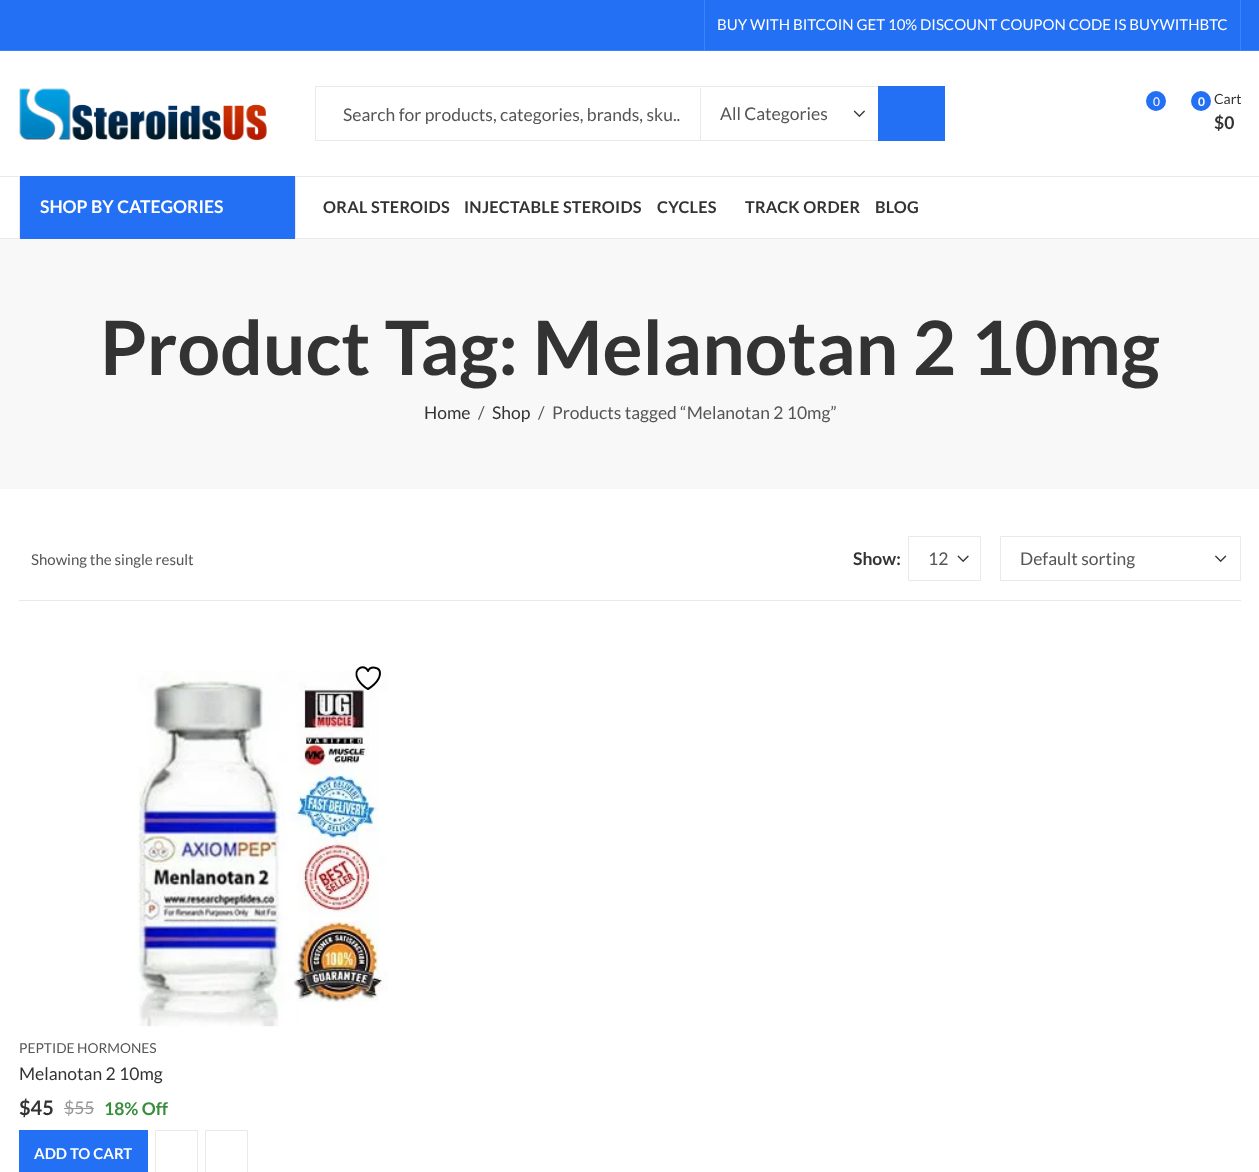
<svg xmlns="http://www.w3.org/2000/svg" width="1259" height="1172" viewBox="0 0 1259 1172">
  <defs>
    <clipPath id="clip1"><path d="M343 103h337v21H343z"/></clipPath>
  </defs>
  <rect width="100%" height="100%" fill="#fff"/>
  <path d="M0 0h1259v50H0z" fill="#2370f4"/>
  <path d="M0 50h1259v1H0z" fill="#3885fe"/>
  <path d="M1240 0h1v50H1240z" fill="#3885fe"/>
  <path d="M704 0h1v50H704z" fill="#3885fe"/>
  <image x="19" y="88" width="248" height="52" href="img/1.png"/>
  <path d="M315.5 86.5h629v54H315.5z" fill="none" stroke="#e9e9e9"/>
  <path d="M700 88h1v52H700z" fill="#e9e9e9"/>
  <image x="853" y="110" width="12" height="8" href="img/2.png"/>
  <path d="M878 86h67v55H878z" fill="#2370f4"/>
  <circle cx="1156" cy="101" r="10" fill="#2370f4"/>
  <circle cx="1201" cy="101" r="10" fill="#2370f4"/>
  <path d="M0 176h1259v1H0z" fill="#e9e9e9"/>
  <path d="M0 238h1259v1H0z" fill="#e9e9e9"/>
  <path d="M20 176h275v63H20z" fill="#2370f4"/>
  <path d="M295 176h1v63H295z" fill="#e9e9e9"/>
  <path d="M19 176h1v63H19z" fill="#e9e9e9"/>
  <path d="M0 239h1259v250H0z" fill="#f8f8f8"/>
  <path d="M19 600h1222v1H19z" fill="#e9e9e9"/>
  <image x="957" y="555" width="12" height="8" href="img/3.png"/>
  <path d="M908.5 536.5h72v44H908.5z" fill="none" stroke="#e9e9e9"/>
  <image x="1215" y="555" width="12" height="8" href="img/4.png"/>
  <path d="M1000.5 536.5h240v44H1000.5z" fill="none" stroke="#e9e9e9"/>
  <image x="137" y="671" width="251" height="356" href="img/5.png"/>
  <path d="M380 673C380 667 370.5 665.5 368 671C365 663.5 352 668 358 679.5C360.5 683.5 364 687 368 689C368 689 380 682.5 380 673Z" fill="none" stroke="#000" stroke-width="2" stroke-linecap="round" stroke-linejoin="round"/>
  <path d="M64 1108h30v1H64z" fill="#999"/>
  <path d="M19 1130h129v42H19z" fill="#2370f4"/>
  <path d="M155.5 1130.5h42v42H155.5z" fill="none" stroke="#e9e9e9"/>
  <path d="M205.5 1130.5h42v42H205.5z" fill="none" stroke="#e9e9e9"/>
  <text x="717" y="30" font-family="Lato" font-size="15" fill="#fff">BUY WITH BITCOIN GET 10% DISCOUNT COUPON CODE IS BUYWITHBTC</text>
  <g clip-path="url(#clip1)">
    <text x="343" y="121" font-family="Lato" font-size="17.5" fill="#555">Search for products, categories, brands, sku..</text>
  </g>
  <text x="720" y="120" font-family="Lato" font-size="17.5" fill="#555">All Categories</text>
  <text x="1153" y="106" font-family="Lato" font-size="12" fill="#fff">0</text>
  <text x="1198" y="106" font-family="Lato" font-size="12" font-weight="bold" fill="#fff">0</text>
  <text x="1214" y="104" font-family="Lato" font-size="14" fill="#333">Cart</text>
  <text x="1214" y="129" font-family="Lato" font-size="17.5" font-weight="bold" fill="#333">$0</text>
  <text x="40" y="213" font-family="Lato" font-size="17.5" font-weight="bold" fill="#fff">SHOP BY CATEGORIES</text>
  <g font-family="Lato" font-size="16.25" font-weight="bold" letter-spacing="0.25" fill="#333">
    <text x="323" y="213">ORAL STEROIDS</text>
    <text x="464" y="213">INJECTABLE STEROIDS</text>
    <text x="657" y="213">CYCLES</text>
    <text x="745" y="213">TRACK ORDER</text>
    <text x="875" y="213">BLOG</text>
  </g>
  <text x="100" y="375" font-family="Lato" font-size="75" font-weight="bold" fill="#333">Product Tag: Melanotan 2 10mg</text>
  <text x="424" y="419" font-family="Lato" font-size="17.5" fill="#333">Home</text>
  <text x="478" y="419" font-family="Lato" font-size="17.5" fill="#555">/</text>
  <text x="492" y="419" font-family="Lato" font-size="17.5" fill="#333">Shop</text>
  <g font-family="Lato" font-size="17.5" fill="#555">
    <text x="538" y="419">/</text>
    <text x="552" y="419">Products tagged “Melanotan 2 10mg”</text>
  </g>
  <text x="31" y="565" font-family="Lato" font-size="15" fill="#555">Showing the single result</text>
  <text x="853" y="565" font-family="Lato" font-size="17.5" font-weight="bold" fill="#333">Show:</text>
  <g font-family="Lato" font-size="17.5" fill="#555">
    <text x="928" y="565">12</text>
    <text x="1020" y="565">Default sorting</text>
  </g>
  <text x="19" y="1053" font-family="Lato" font-size="13.75" fill="#555">PEPTIDE HORMONES</text>
  <text x="19" y="1080" font-family="Lato" font-size="17.5" fill="#333">Melanotan 2 10mg</text>
  <text x="19" y="1115" font-family="Lato" font-size="20" font-weight="bold" fill="#333">$45</text>
  <text x="64" y="1114" font-family="Lato" font-size="17.5" fill="#999">$55</text>
  <text x="104" y="1115" font-family="Lato" font-size="17.5" font-weight="bold" fill="#388e3c">18% Off</text>
  <text x="34" y="1159" font-family="Lato" font-size="15" font-weight="bold" fill="#fff">ADD TO CART</text>
</svg>
